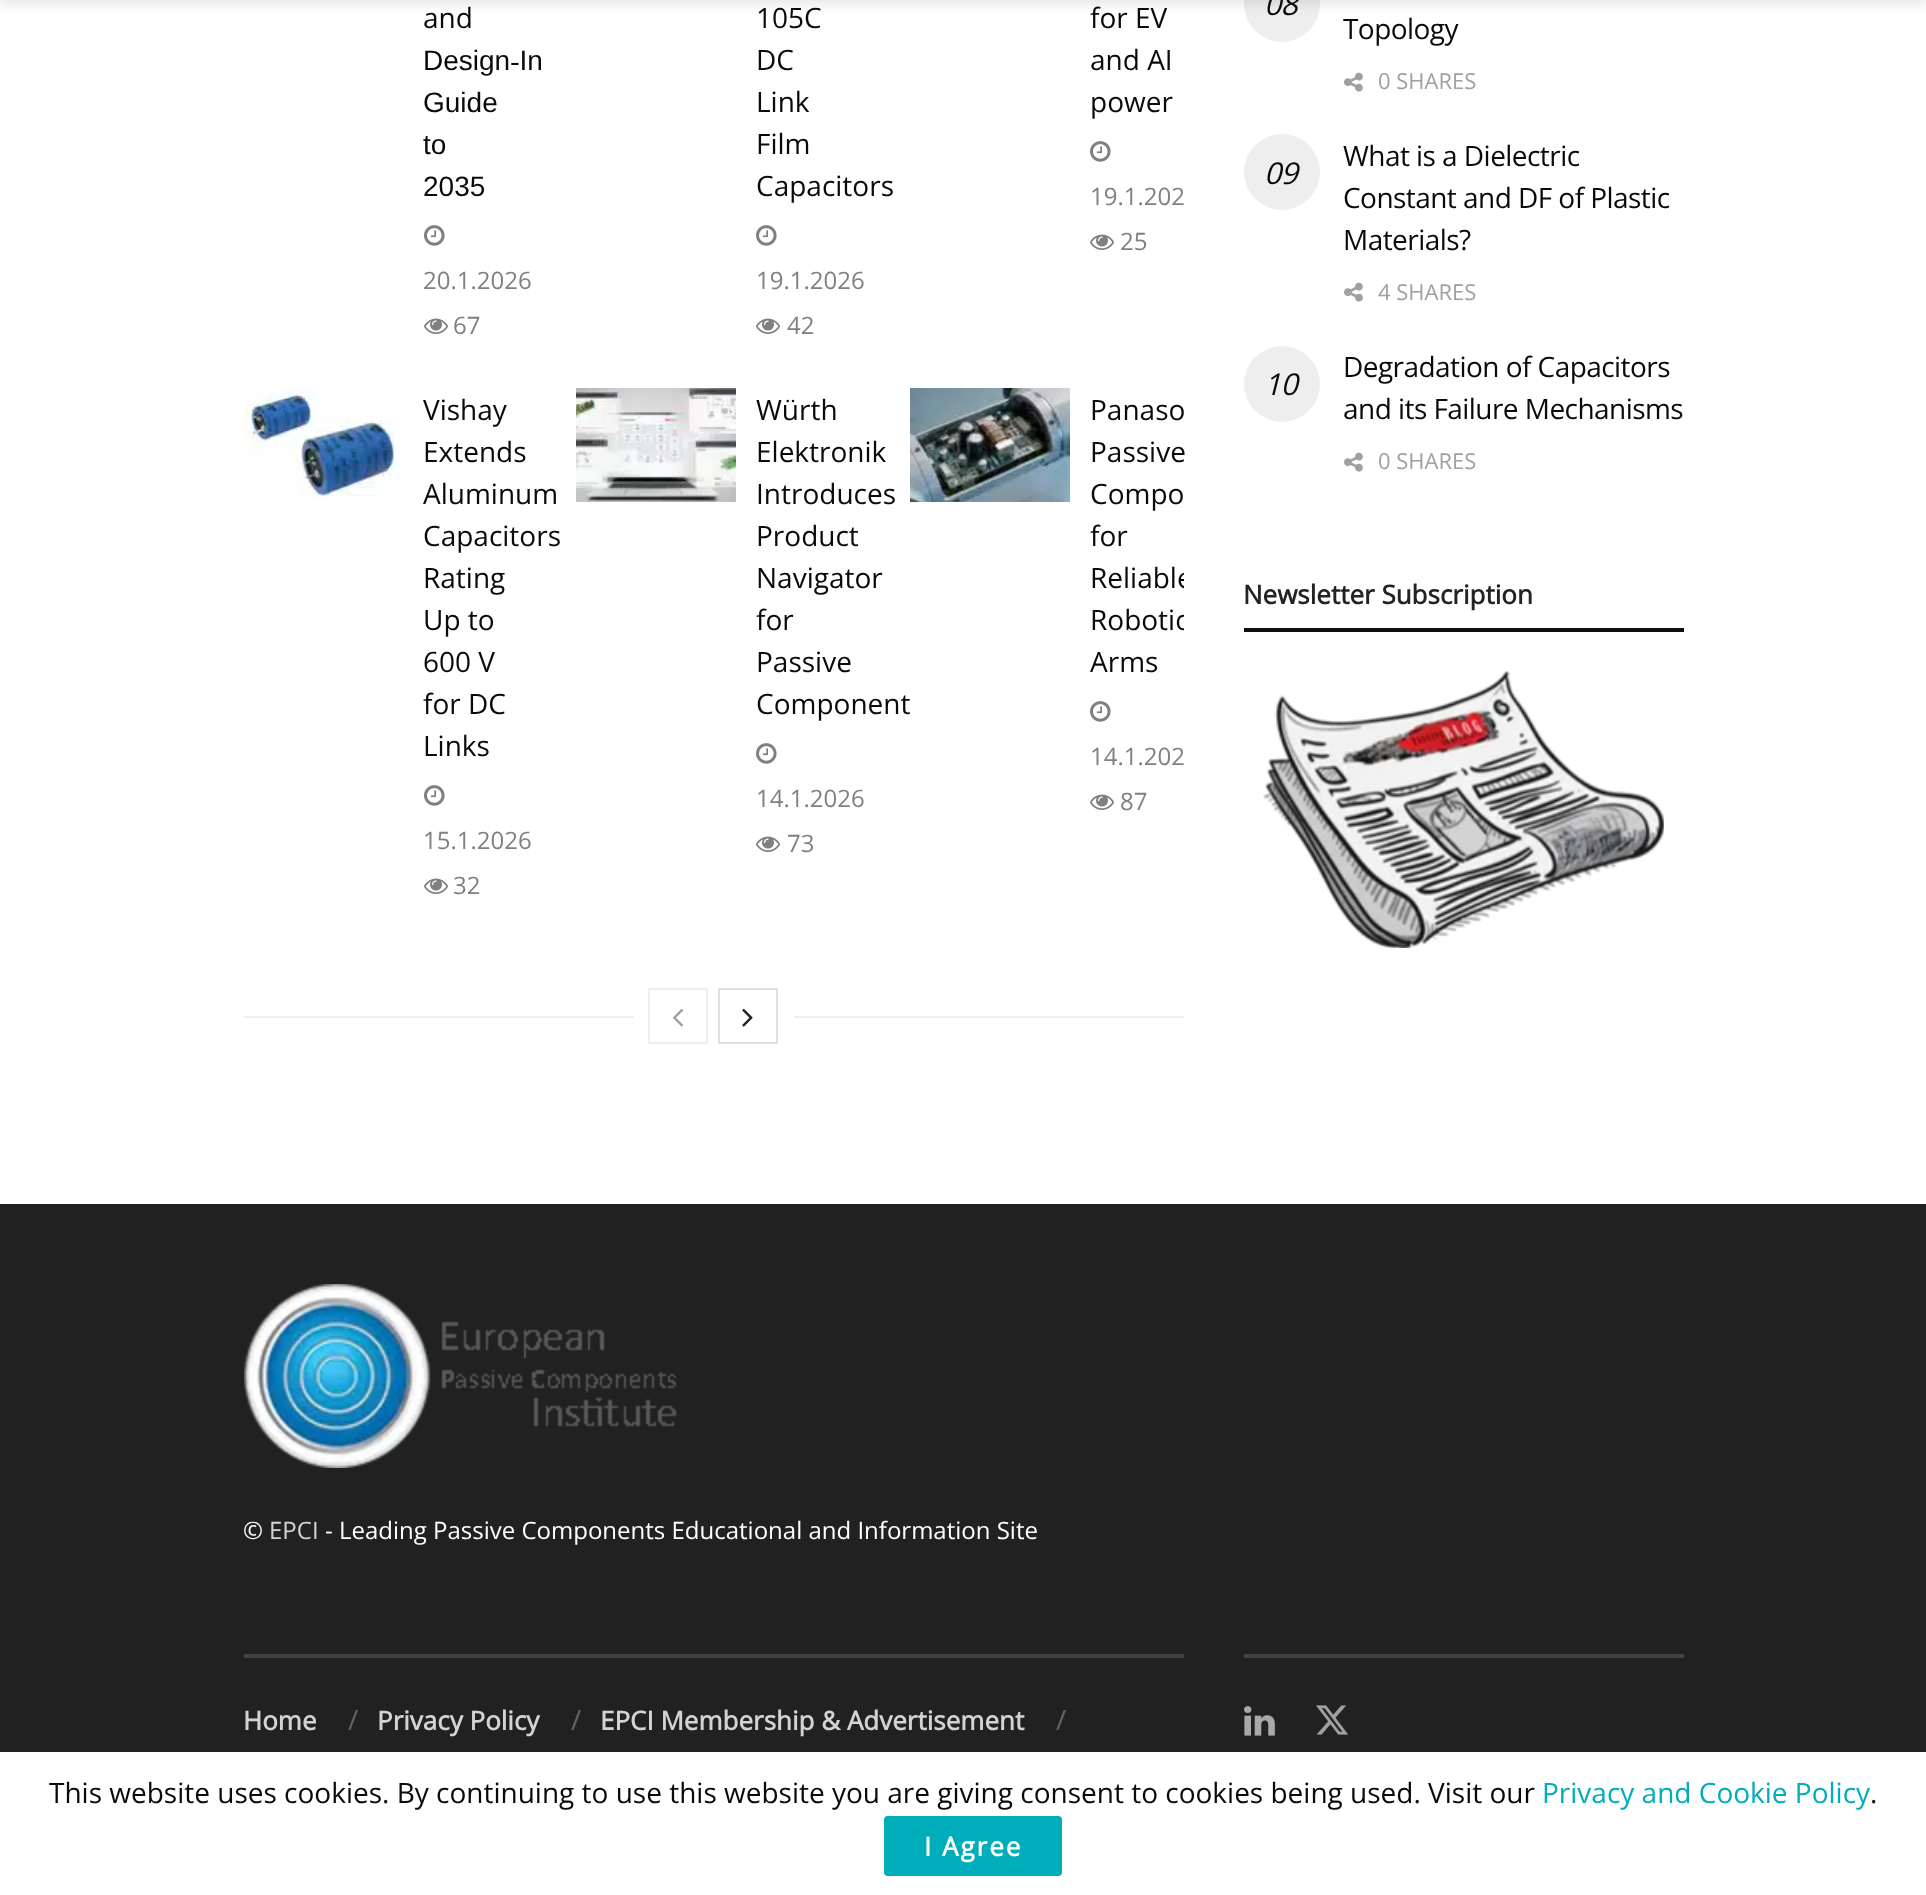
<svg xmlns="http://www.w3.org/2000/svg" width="1926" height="1895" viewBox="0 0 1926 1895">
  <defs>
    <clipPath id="clip1"><path d="M910 388h274v520H910z"/></clipPath>
  </defs>
  <rect width="100%" height="100%" fill="#212121"/>
  <path d="M0 0h1926v1204H0z" fill="#fff"/>
  <circle cx="1282" cy="4" r="38" fill="#eee"/>
  <path d="M0 -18h1926v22H0z" fill="#0000001a" filter="blur(6px)"/>
  <image x="424" y="225" width="21" height="21" href="img/1.png"/>
  <image x="424" y="318" width="24" height="16" href="img/2.png"/>
  <image x="756" y="225" width="21" height="21" href="img/1.png"/>
  <image x="756" y="318" width="24" height="16" href="img/2.png"/>
  <image x="1090" y="141" width="21" height="21" href="img/1.png"/>
  <image x="1090" y="234" width="24" height="16" href="img/2.png"/>
  <image x="244" y="388" width="160" height="114" href="img/3.png"/>
  <image x="424" y="785" width="21" height="21" href="img/1.png"/>
  <image x="424" y="878" width="24" height="16" href="img/2.png"/>
  <image x="576" y="388" width="160" height="114" href="img/4.png"/>
  <image x="756" y="743" width="21" height="21" href="img/1.png"/>
  <image x="756" y="836" width="24" height="16" href="img/2.png"/>
  <image x="910" y="388" width="160" height="114" href="img/5.png"/>
  <image x="1090" y="701" width="21" height="21" href="img/1.png"/>
  <image x="1090" y="794" width="24" height="16" href="img/2.png"/>
  <path d="M244 1016h390v2H244z" fill="#eee"/>
  <path d="M649 989h58v54H649z" fill="none" stroke="#eee" stroke-width="2"/>
  <image x="672" y="1008" width="12" height="19" href="img/6.png"/>
  <path d="M719 989h58v54H719z" fill="none" stroke="#e0e0e0" stroke-width="2"/>
  <image x="742" y="1008" width="11" height="19" href="img/7.png"/>
  <path d="M794 1016h390v2H794z" fill="#eee"/>
  <image x="1344" y="72" width="19" height="20" href="img/8.png"/>
  <circle cx="1282" cy="172" r="38" fill="#eee"/>
  <image x="1344" y="282" width="19" height="20" href="img/8.png"/>
  <circle cx="1282" cy="384" r="38" fill="#eee"/>
  <image x="1344" y="452" width="19" height="20" href="img/8.png"/>
  <path d="M1244 628h440v4H1244z" fill="#0f0f0f"/>
  <image x="1263" y="671" width="401" height="277" href="img/9.png"/>
  <image x="244" y="1284" width="433" height="184" href="img/10.png"/>
  <path d="M244 1654h940v4H244z" fill="#424242"/>
  <path d="M1244 1654h440v4H1244z" fill="#424242"/>
  <image x="1244" y="1706" width="31" height="30" href="img/11.png"/>
  <image x="1316" y="1705" width="32" height="30" href="img/12.png"/>
  <path d="M0 1752h1926v143H0z" fill="#fff"/>
  <rect x="884" y="1816" width="178" height="60" rx="4" fill="#00adbb"/>
  <text x="423" y="28" font-family="Open Sans" font-size="28" fill="#0a0a0a">and</text>
  <g font-family="Liberation Sans" font-size="28" fill="#0a0a0a">
    <text x="423" y="70">Design‑In</text>
    <text x="423" y="112">Guide</text>
    <text x="423" y="154">to</text>
    <text x="423" y="196">2035</text>
  </g>
  <g font-family="Open Sans" font-size="24" fill="#808080">
    <text x="423" y="289">20.1.2026</text>
    <text x="453" y="334">67</text>
  </g>
  <g font-family="Open Sans" font-size="28" fill="#0a0a0a">
    <text x="756" y="28">105C</text>
    <text x="756" y="70">DC</text>
    <text x="756" y="112">Link</text>
    <text x="756" y="154">Film</text>
    <text x="756" y="196">Capacitors</text>
  </g>
  <g font-family="Open Sans" font-size="24" fill="#808080">
    <text x="756" y="289">19.1.2026</text>
    <text x="787" y="334">42</text>
  </g>
  <g font-family="Open Sans" font-size="28" fill="#0a0a0a">
    <text x="1090" y="28">for EV</text>
    <text x="1090" y="70">and AI</text>
    <text x="1090" y="112">power</text>
  </g>
  <g font-family="Open Sans" font-size="24" fill="#808080">
    <text x="1090" y="205">19.1.202</text>
    <text x="1120" y="250">25</text>
  </g>
  <g font-family="Open Sans" font-size="28" fill="#0a0a0a">
    <text x="423" y="420">Vishay</text>
    <text x="423" y="462">Extends</text>
    <text x="423" y="504">Aluminum</text>
    <text x="423" y="546">Capacitors</text>
    <text x="423" y="588">Rating</text>
    <text x="423" y="630">Up to</text>
    <text x="423" y="672">600 V</text>
    <text x="423" y="714">for DC</text>
    <text x="423" y="756">Links</text>
  </g>
  <g font-family="Open Sans" font-size="24" fill="#808080">
    <text x="423" y="849">15.1.2026</text>
    <text x="453" y="894">32</text>
  </g>
  <g font-family="Open Sans" font-size="28" fill="#0a0a0a">
    <text x="756" y="420">Würth</text>
    <text x="756" y="462">Elektronik</text>
    <text x="756" y="504">Introduces</text>
    <text x="756" y="546">Product</text>
    <text x="756" y="588">Navigator</text>
    <text x="756" y="630">for</text>
    <text x="756" y="672">Passive</text>
    <text x="756" y="714">Component</text>
  </g>
  <g font-family="Open Sans" font-size="24" fill="#808080">
    <text x="756" y="807">14.1.2026</text>
    <text x="787" y="852">73</text>
  </g>
  <g font-family="Open Sans" font-size="28" fill="#0a0a0a">
    <text x="1090" y="420">Panaso</text>
    <text x="1090" y="462">Passive</text>
    <text x="1090" y="504">Compo</text>
    <text x="1090" y="546">for</text>
  </g>
  <g clip-path="url(#clip1)">
    <g font-family="Open Sans" font-size="28" fill="#0a0a0a">
      <text x="1090" y="588">Reliable</text>
      <text x="1090" y="630">Robotic</text>
    </g>
  </g>
  <text x="1090" y="672" font-family="Open Sans" font-size="28" fill="#0a0a0a">Arms</text>
  <g font-family="Open Sans" font-size="24" fill="#808080">
    <text x="1090" y="765">14.1.202</text>
    <text x="1120" y="810">87</text>
  </g>
  <text x="1264" y="15" font-family="Open Sans" font-size="30" font-style="italic" letter-spacing="-0.55" fill="#0a0a0a">08</text>
  <text x="1343" y="39" font-family="Open Sans" font-size="28" letter-spacing="-0.55" fill="#0a0a0a">Topology</text>
  <text x="1378" y="89" font-family="Open Sans" font-size="22" fill="#a0a0a0">0 SHARES</text>
  <text x="1343" y="166" font-family="Open Sans" font-size="28" letter-spacing="-0.55" fill="#0a0a0a">What is a Dielectric</text>
  <text x="1264" y="184" font-family="Open Sans" font-size="30" font-style="italic" letter-spacing="-0.55" fill="#0a0a0a">09</text>
  <g font-family="Open Sans" font-size="28" letter-spacing="-0.55" fill="#0a0a0a">
    <text x="1343" y="208">Constant and DF of Plastic</text>
    <text x="1343" y="250">Materials?</text>
  </g>
  <text x="1378" y="300" font-family="Open Sans" font-size="22" fill="#a0a0a0">4 SHARES</text>
  <text x="1264" y="395" font-family="Open Sans" font-size="30" font-style="italic" letter-spacing="-0.55" fill="#0a0a0a">10</text>
  <g font-family="Open Sans" font-size="28" letter-spacing="-0.55" fill="#0a0a0a">
    <text x="1343" y="377">Degradation of Capacitors</text>
    <text x="1343" y="419">and its Failure Mechanisms</text>
  </g>
  <text x="1378" y="469" font-family="Open Sans" font-size="22" fill="#a0a0a0">0 SHARES</text>
  <text x="1243" y="604" font-family="Open Sans" font-size="26" font-weight="bold" fill="#232323">Newsletter Subscription</text>
  <text x="243" y="1539" font-family="Open Sans" font-size="24" fill="#fff">©</text>
  <text x="269" y="1539" font-family="Open Sans" font-size="24" fill="#d3d3d3">EPCI</text>
  <text x="325" y="1539" font-family="Open Sans" font-size="24" fill="#fff">- Leading Passive Components Educational and Information Site</text>
  <text x="243" y="1730" font-family="Open Sans" font-size="26" font-weight="bold" fill="#d3d3d3">Home</text>
  <text x="348" y="1730" font-family="Open Sans" font-size="28" fill="#646464">/</text>
  <text x="377" y="1730" font-family="Open Sans" font-size="26" font-weight="bold" fill="#d3d3d3">Privacy Policy</text>
  <text x="571" y="1730" font-family="Open Sans" font-size="28" fill="#646464">/</text>
  <text x="600" y="1730" font-family="Open Sans" font-size="26" font-weight="bold" fill="#d3d3d3">EPCI Membership &amp; Advertisement</text>
  <text x="1056" y="1730" font-family="Open Sans" font-size="28" fill="#646464">/</text>
  <text x="49" y="1803" font-family="Open Sans" font-size="28" fill="#0a0a0a">This website uses cookies. By continuing to use this website you are giving consent to cookies being used. Visit our</text>
  <text x="1542" y="1803" font-family="Open Sans" font-size="28" fill="#00adbb">Privacy and Cookie Policy</text>
  <text x="1870" y="1803" font-family="Open Sans" font-size="28" fill="#0a0a0a">.</text>
  <text x="924" y="1856" font-family="Open Sans" font-size="26" font-weight="bold" letter-spacing="2" fill="#fff">I Agree</text>
</svg>
